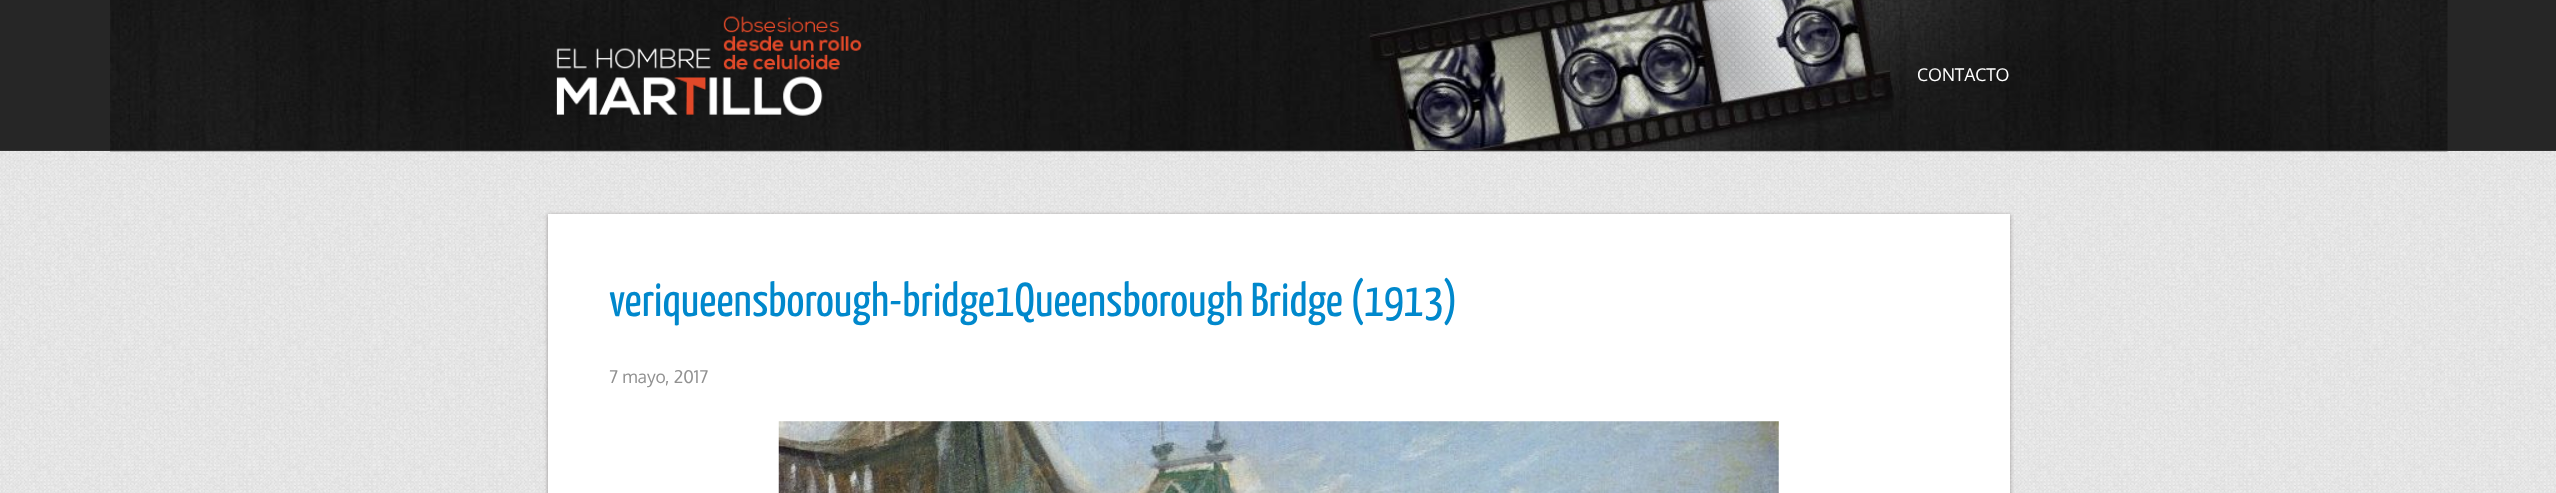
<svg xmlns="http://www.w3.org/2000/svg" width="2556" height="493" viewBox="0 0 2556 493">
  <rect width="100%" height="100%" fill="#fff"/>
  <image x="0" y="151" width="2556" height="342" href="img/1.png"/>
  <path d="M0 0h2556v150H0z" fill="#262626"/>
  <image x="110" y="0" width="2338" height="152" href="img/2.png"/>
  <path d="M0 150h2556v1H0z" fill="#333"/>
  <image x="556" y="16" width="306" height="100" href="img/3.png"/>
  <path d="M548 215h1462v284H548z" fill="#22191966" filter="blur(2px)"/>
  <path d="M548 214h1462v279H548z" fill="#fff"/>
  <image x="778" y="421" width="1001" height="72" href="img/4.png"/>
  <text x="1917" y="81" font-family="Oxygen" font-size="17.5" fill="#fff">CONTACTO</text>
  <text x="609" y="316" font-family="Yanone Kaffeesatz" font-size="47.5" fill="#08c">veriqueensborough-bridge1Queensborough Bridge (1913)</text>
  <text x="609" y="383" font-family="Oxygen" font-size="17.5" fill="#919191">7 mayo, 2017</text>
</svg>
